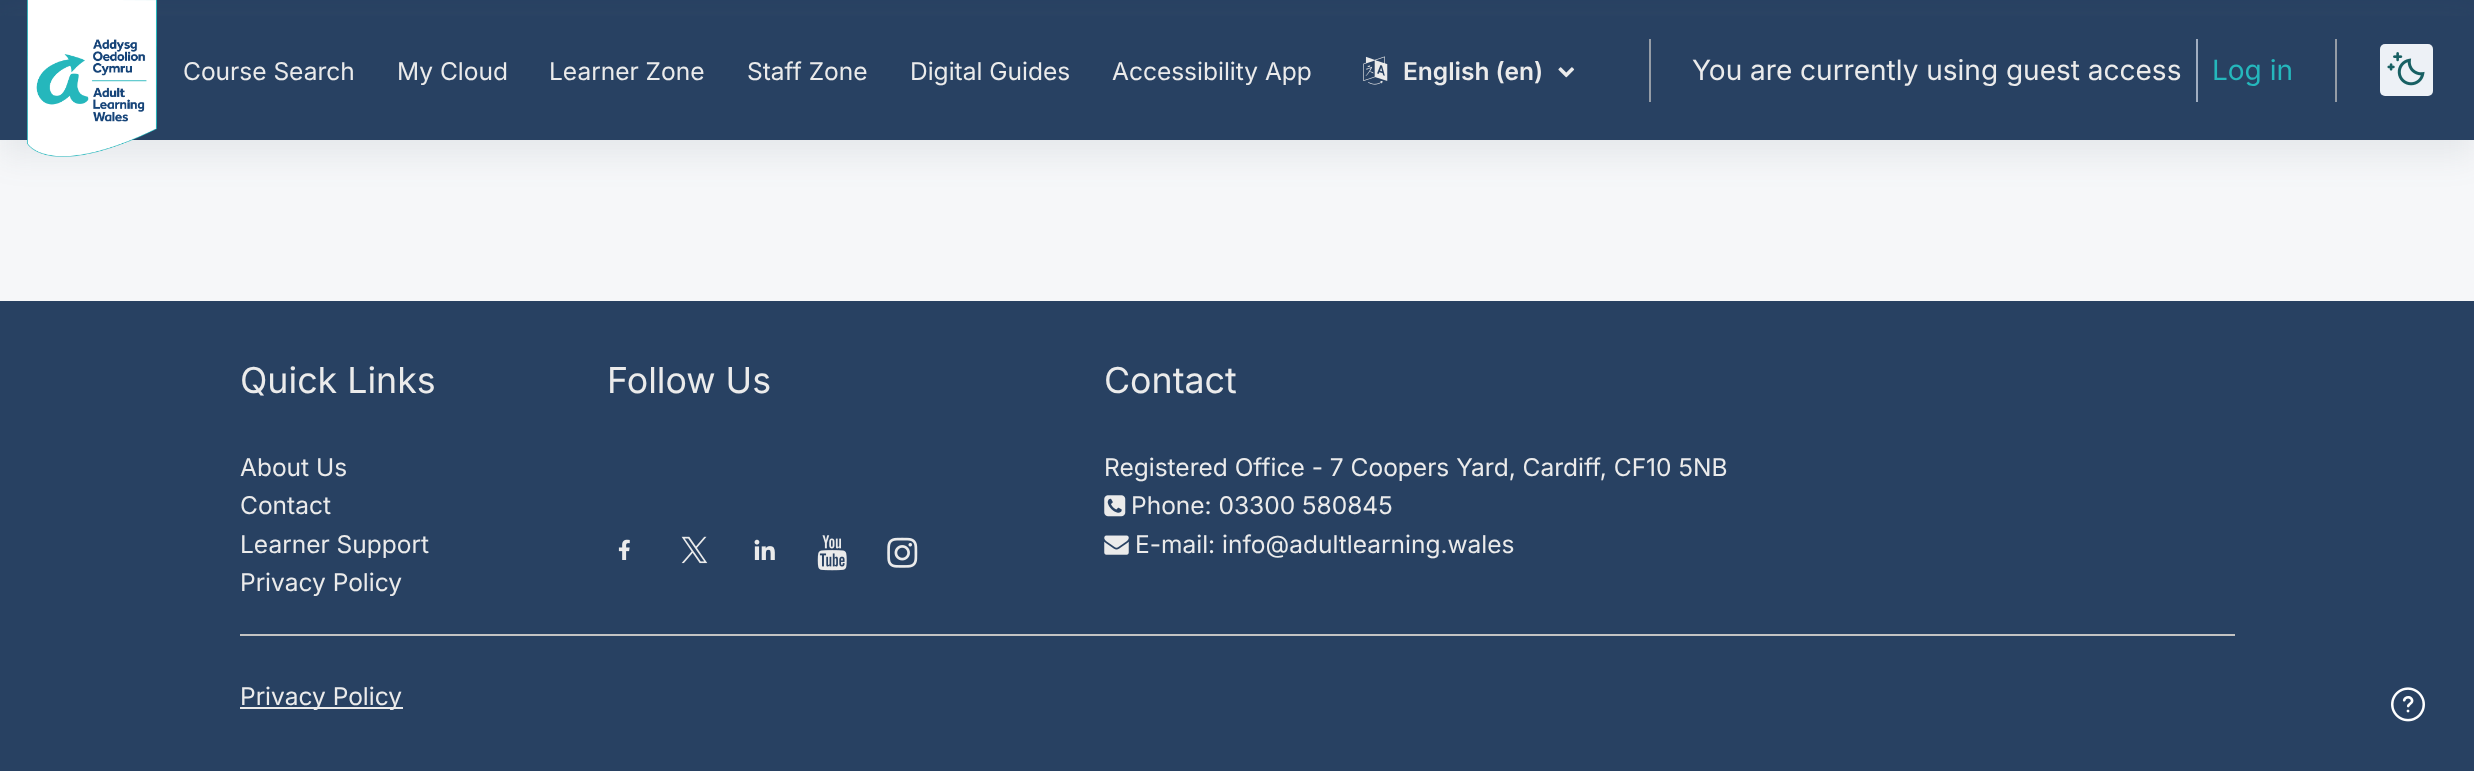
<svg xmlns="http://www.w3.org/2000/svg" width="2474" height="771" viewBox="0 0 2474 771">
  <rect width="100%" height="100%" fill="#284162"/>
  <path d="M0 140h2474v161H0z" fill="#f6f7f9"/>
  <path d="M0 16h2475v140H0z" fill="#5c6b791a" filter="blur(16px)"/>
  <path d="M0 16h2474v124H0z" fill="#284162"/>
  <image x="26" y="0" width="131" height="157" href="img/1.png"/>
  <image x="1363" y="56" width="25" height="29" href="img/2.png"/>
  <image x="1558" y="67" width="17" height="11" href="img/3.png"/>
  <path d="M1649 39h2v63H1649z" fill="#959ca6"/>
  <path d="M2196 39h2v63H2196z" fill="#a1aec1"/>
  <path d="M2335 39h2v63H2335z" fill="#959ca6"/>
  <rect x="2380" y="44" width="53" height="52" rx="5" fill="#edf1f6"/>
  <image x="2387" y="52" width="38" height="34" href="img/4.png"/>
  <image x="618" y="539" width="12" height="21" href="img/5.png"/>
  <image x="681" y="536" width="27" height="28" href="img/6.png"/>
  <image x="754" y="539" width="21" height="21" href="img/7.png"/>
  <image x="817" y="535" width="30" height="36" href="img/8.png"/>
  <image x="887" y="537" width="31" height="31" href="img/9.png"/>
  <image x="1104" y="495" width="22" height="22" href="img/10.png"/>
  <image x="1104" y="535" width="25" height="20" href="img/11.png"/>
  <path d="M240 634h1995v2H240z" fill="#c3c3c3"/>
  <path d="M240 707h163v2H240z" fill="#ebebeb"/>
  <image x="2391" y="687" width="34" height="35" href="img/12.png"/>
  <g font-family="Inter" font-size="24.5" fill="#ebebeb">
    <text x="183" y="80">Course Search</text>
    <text x="397" y="80">My Cloud</text>
    <text x="549" y="80">Learner Zone</text>
    <text x="747" y="80">Staff Zone</text>
    <text x="910" y="80">Digital Guides</text>
    <text x="1112" y="80">Accessibility App</text>
  </g>
  <text x="1403" y="80" font-family="Inter" font-size="24.5" font-weight="600" fill="#ebebeb">English (en)</text>
  <text x="1692" y="80" font-family="Inter" font-size="28" fill="#ebebeb">You are currently using guest access</text>
  <text x="2212" y="80" font-family="Inter" font-size="28" fill="#25b7bc">Log in</text>
  <text x="240" y="393" font-family="Inter" font-size="35.75" fill="#ebebeb">Quick Links</text>
  <g font-family="Inter" font-size="24.5" fill="#ebebeb">
    <text x="240" y="476">About Us</text>
    <text x="240" y="514">Contact</text>
    <text x="240" y="553">Learner Support</text>
    <text x="240" y="591">Privacy Policy</text>
  </g>
  <g font-family="Inter" font-size="35.75" fill="#ebebeb">
    <text x="607" y="393">Follow Us</text>
    <text x="1104" y="393">Contact</text>
  </g>
  <g font-family="Inter" font-size="24.5" fill="#ebebeb">
    <text x="1104" y="476">Registered Office - 7 Coopers Yard, Cardiff, CF10 5NB</text>
    <text x="1131" y="514">Phone: 03300 580845</text>
    <text x="1135" y="553">E-mail: info@adultlearning.wales</text>
    <text x="240" y="705">Privacy Policy</text>
  </g>
</svg>
